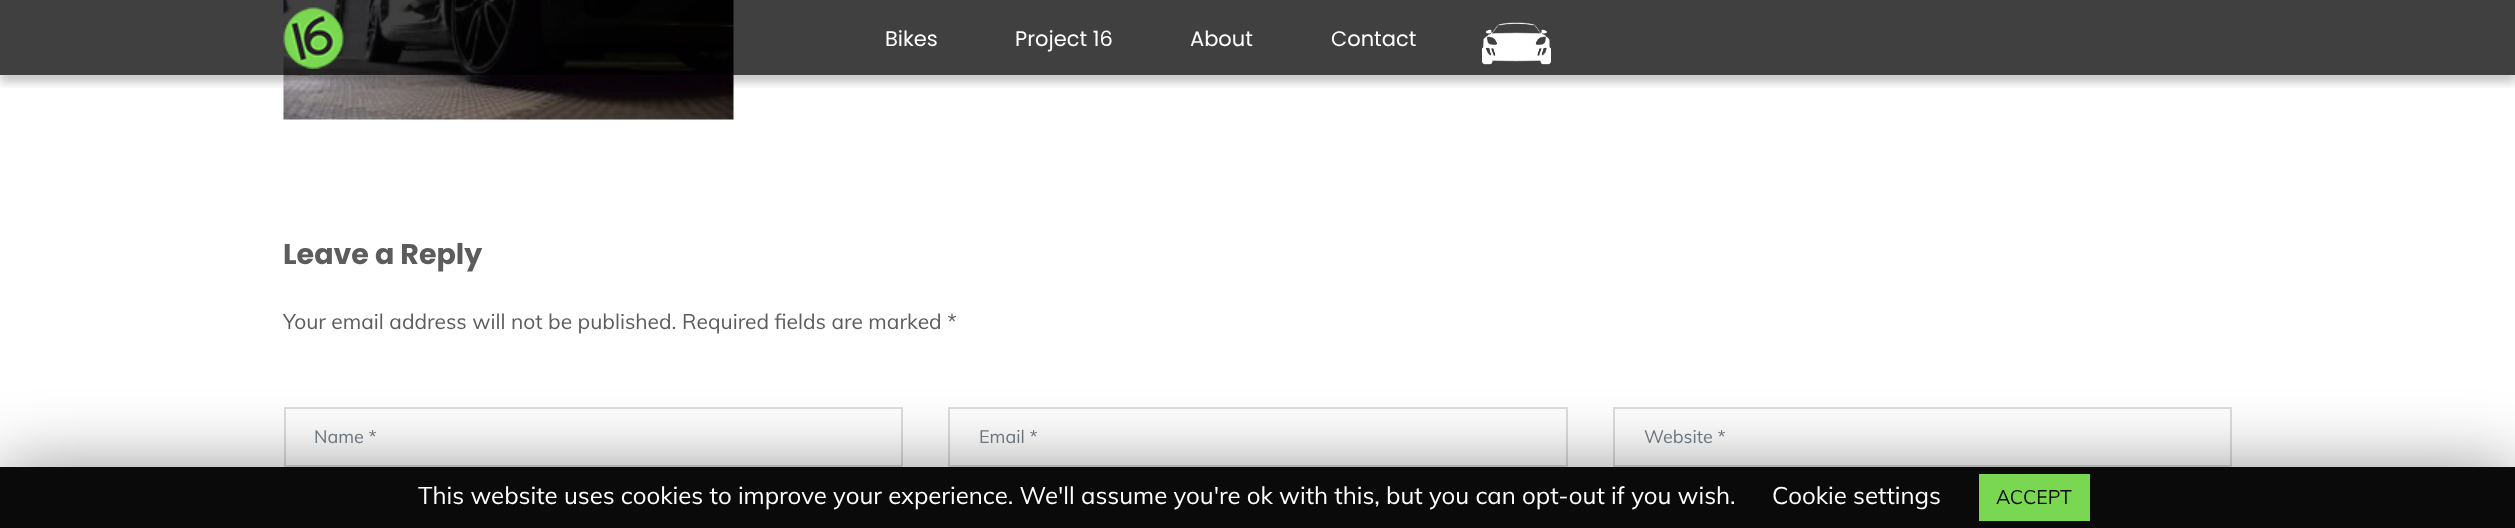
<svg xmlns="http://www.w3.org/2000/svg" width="2515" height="528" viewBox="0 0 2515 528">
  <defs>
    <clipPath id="clip1"><path d="M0 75h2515v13H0z"/></clipPath>
  </defs>
  <rect width="100%" height="100%" fill="#fff"/>
  <image x="283" y="0" width="451" height="120" href="img/3.png"/>
  <g clip-path="url(#clip1)">
    <path d="M0 8h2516v75H0z" fill="#00000033" filter="blur(4px)"/>
  </g>
  <path d="M0 0h2515v75H0z" fill="#000000bf"/>
  <image x="283" y="7" width="61" height="62" href="img/1.png"/>
  <image x="1482" y="22" width="69" height="43" href="img/2.png"/>
  <path d="M285 408h617v58H285z" fill="none" stroke="#ddd" stroke-width="2"/>
  <path d="M949 408h618v58H949z" fill="none" stroke="#ddd" stroke-width="2"/>
  <path d="M1614 408h617v58H1614z" fill="none" stroke="#ddd" stroke-width="2"/>
  <path d="M0 474h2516v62H0z" fill="#00000080" filter="blur(37.5px)"/>
  <path d="M0 467h2515v61H0z" fill="#0a0a0a"/>
  <path d="M1979 474h111v47H1979z" fill="#7ad752"/>
  <g font-family="Poppins" font-size="21" fill="#fff">
    <text x="885" y="46">Bikes</text>
    <text x="1015" y="46">Project 16</text>
    <text x="1190" y="46">About</text>
    <text x="1331" y="46">Contact</text>
  </g>
  <text x="283" y="264" font-family="Poppins" font-size="28.5" font-weight="bold" fill="#5c5c5c">Leave a Reply</text>
  <text x="283" y="329" font-family="Muli" font-size="21" fill="#5c5c5c">Your email address will not be published. Required fields are marked *</text>
  <g font-family="Muli" font-size="18" fill="#6c757d">
    <text x="314" y="443">Name *</text>
    <text x="979" y="443">Email *</text>
    <text x="1644" y="443">Website *</text>
  </g>
  <g font-family="Muli" font-size="24" fill="#fff">
    <text x="418" y="504">This website uses cookies to improve your experience. We'll assume you're ok with this, but you can opt-out if you wish.</text>
    <text x="1772" y="504">Cookie settings</text>
  </g>
  <text x="1996" y="504" font-family="Muli" font-size="19.5" fill="#0a0a0a">ACCEPT</text>
</svg>
